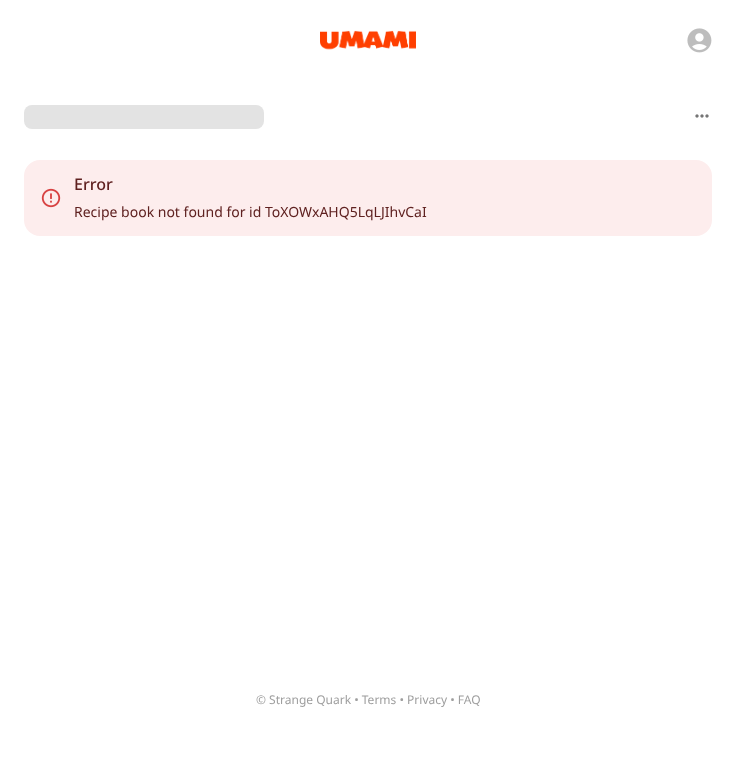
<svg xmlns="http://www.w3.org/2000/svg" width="736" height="758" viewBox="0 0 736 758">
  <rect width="100%" height="100%" fill="#fff"/>
  <image x="320" y="30" width="96" height="20" href="img/1.png"/>
  <image x="687" y="28" width="25" height="25" href="img/2.png"/>
  <rect x="24" y="105" width="240" height="24" rx="8" fill="#e3e3e3"/>
  <image x="695" y="114" width="14" height="4" href="img/3.png"/>
  <rect x="24" y="160" width="688" height="76" rx="16" fill="#fdeded"/>
  <image x="41" y="188" width="20" height="20" href="img/4.png"/>
  <text x="74" y="190" font-family="Noto Sans" font-size="16" font-weight="500" fill="#5f2120">Error</text>
  <text x="74" y="217" font-family="Noto Sans" font-size="14" fill="#5f2120">Recipe book not found for id ToXOWxAHQ5LqLJIhvCaI</text>
  <text x="256" y="704" font-family="Noto Sans" font-size="12" fill="#9e9e9e">© Strange Quark • Terms • Privacy • FAQ</text>
</svg>
